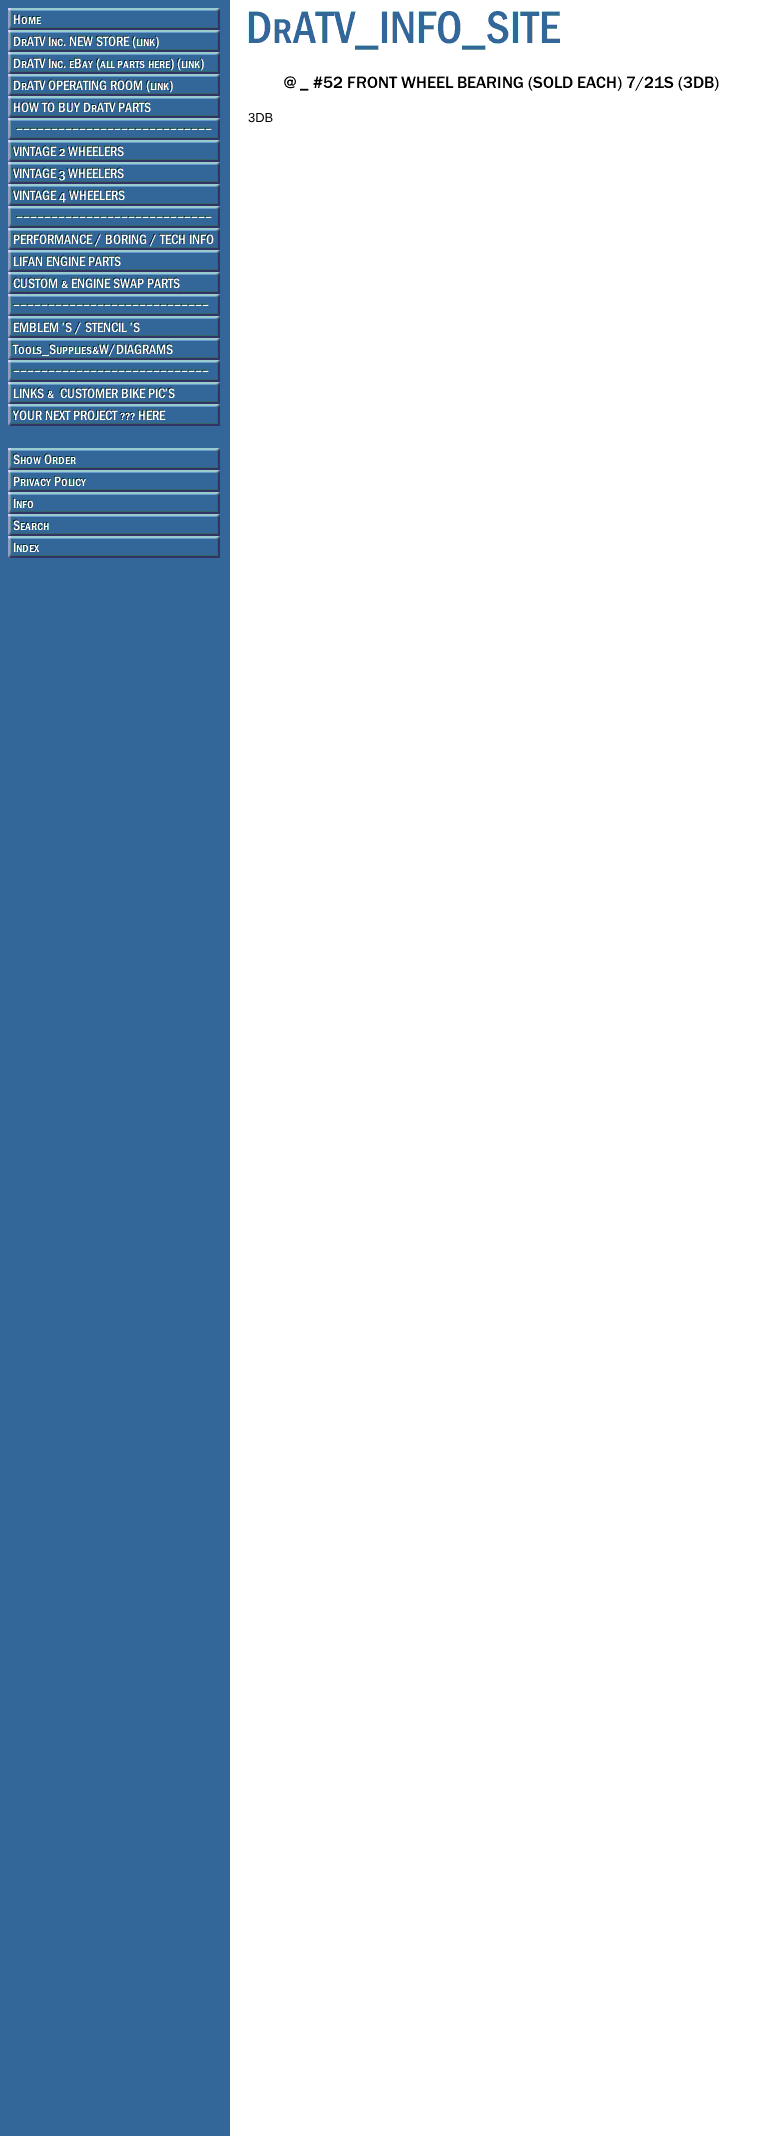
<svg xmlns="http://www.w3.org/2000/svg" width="766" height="2136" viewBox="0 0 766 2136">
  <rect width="100%" height="100%" fill="#fff"/>
  <path d="M0 0h230v2136H0z" fill="#369"/>
  <image x="8" y="8" width="212" height="550" href="img/1.png"/>
  <image x="248" y="11" width="312" height="39" href="img/2.png"/>
  <image x="284" y="76" width="435" height="15" href="img/3.png"/>
  <text x="248" y="122" font-family="Liberation Sans" font-size="13" fill="#000">3DB</text>
</svg>
